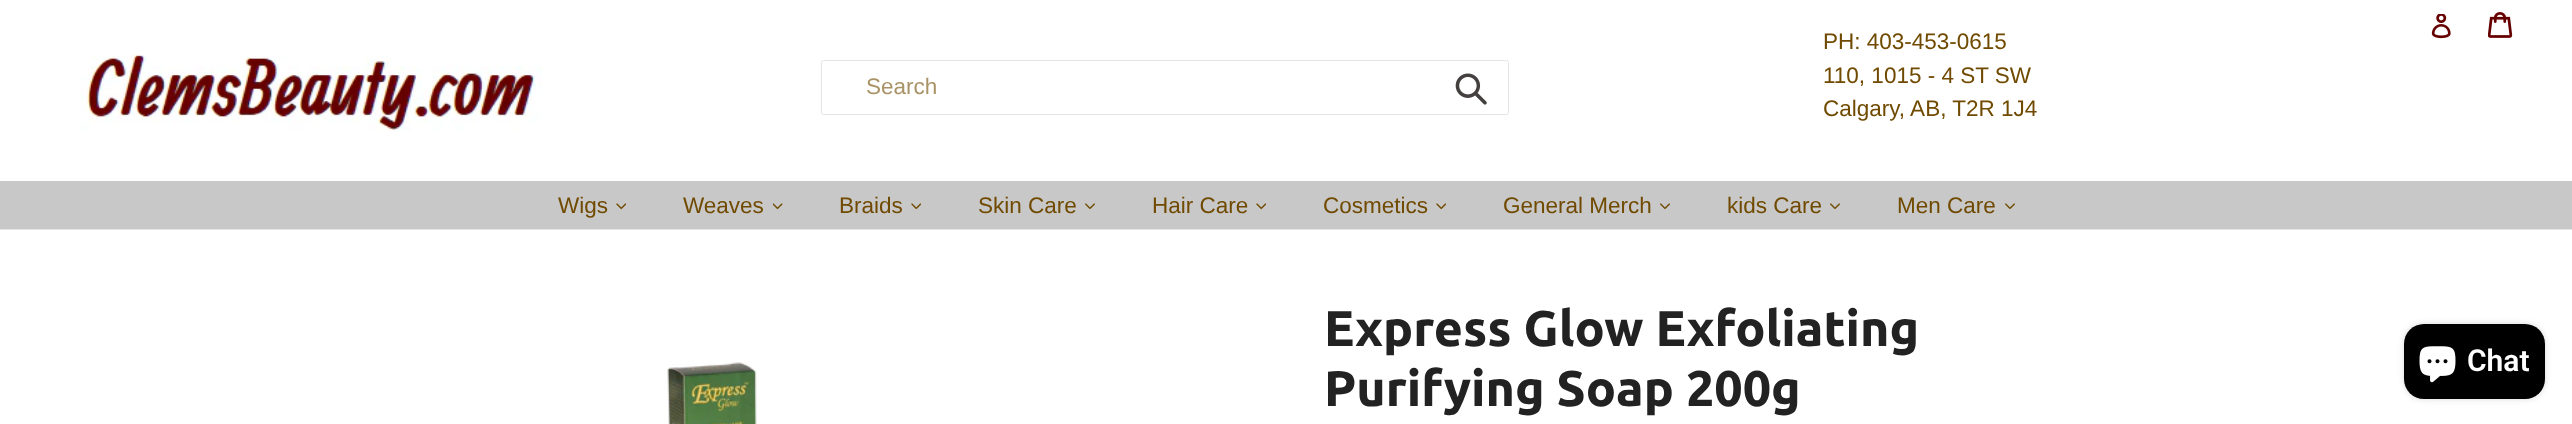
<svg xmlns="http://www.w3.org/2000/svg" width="2572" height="424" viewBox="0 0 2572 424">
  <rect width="100%" height="100%" fill="#fff"/>
  <image x="80" y="54" width="463" height="77" href="img/1.png"/>
  <rect x="821.5" y="60.5" width="687" height="54" rx="2" fill="none" stroke="#e4e4e4"/>
  <image x="1455" y="73" width="32" height="32" href="img/2.png"/>
  <image x="2431" y="14" width="20" height="25" href="img/3.png"/>
  <image x="2488" y="12" width="25" height="26" href="img/4.png"/>
  <path d="M0 229h2572v1H0z" fill="#e4e4e4"/>
  <path d="M0 181h2572v48H0z" fill="#c8c8c8"/>
  <image x="616" y="203" width="10" height="7" href="img/5.png"/>
  <image x="773" y="203" width="10" height="7" href="img/6.png"/>
  <image x="911" y="203" width="10" height="7" href="img/5.png"/>
  <image x="1085" y="203" width="10" height="6" href="img/7.png"/>
  <image x="1256" y="203" width="10" height="7" href="img/5.png"/>
  <image x="1436" y="203" width="10" height="7" href="img/5.png"/>
  <image x="1660" y="203" width="10" height="6" href="img/7.png"/>
  <image x="1830" y="203" width="10" height="6" href="img/7.png"/>
  <image x="2005" y="203" width="10" height="6" href="img/7.png"/>
  <image x="667" y="362" width="90" height="62" href="img/8.png"/>
  <rect x="2404" y="324" width="141" height="75" rx="20" fill="#00000026" filter="blur(3px)"/>
  <rect x="2404" y="324" width="141" height="75" rx="20" fill="#000"/>
  <image x="2419" y="346" width="37" height="37" href="img/9.png"/>
  <text x="866" y="94" font-family="Liberation Sans" font-size="22.5" fill="#a99266">Search</text>
  <g font-family="Liberation Sans" font-size="22.5" fill="#704a00">
    <text x="1823" y="49">PH: 403-453-0615</text>
    <text x="1823" y="83">110, 1015 - 4 ST SW</text>
    <text x="1823" y="116">Calgary, AB, T2R 1J4</text>
    <text x="558" y="213">Wigs</text>
    <text x="683" y="213">Weaves</text>
    <text x="839" y="213">Braids</text>
    <text x="978" y="213">Skin Care</text>
    <text x="1152" y="213">Hair Care</text>
    <text x="1323" y="213">Cosmetics</text>
    <text x="1503" y="213">General Merch</text>
    <text x="1727" y="213">kids Care</text>
    <text x="1897" y="213">Men Care</text>
  </g>
  <g font-family="Ubuntu" font-size="50" font-weight="bold" fill="#222">
    <text x="1324" y="346">Express Glow Exfoliating</text>
    <text x="1324" y="406">Purifying Soap 200g</text>
  </g>
  <text x="2467" y="371" font-family="Roboto" font-size="30" font-weight="600" fill="#fff">Chat</text>
</svg>
